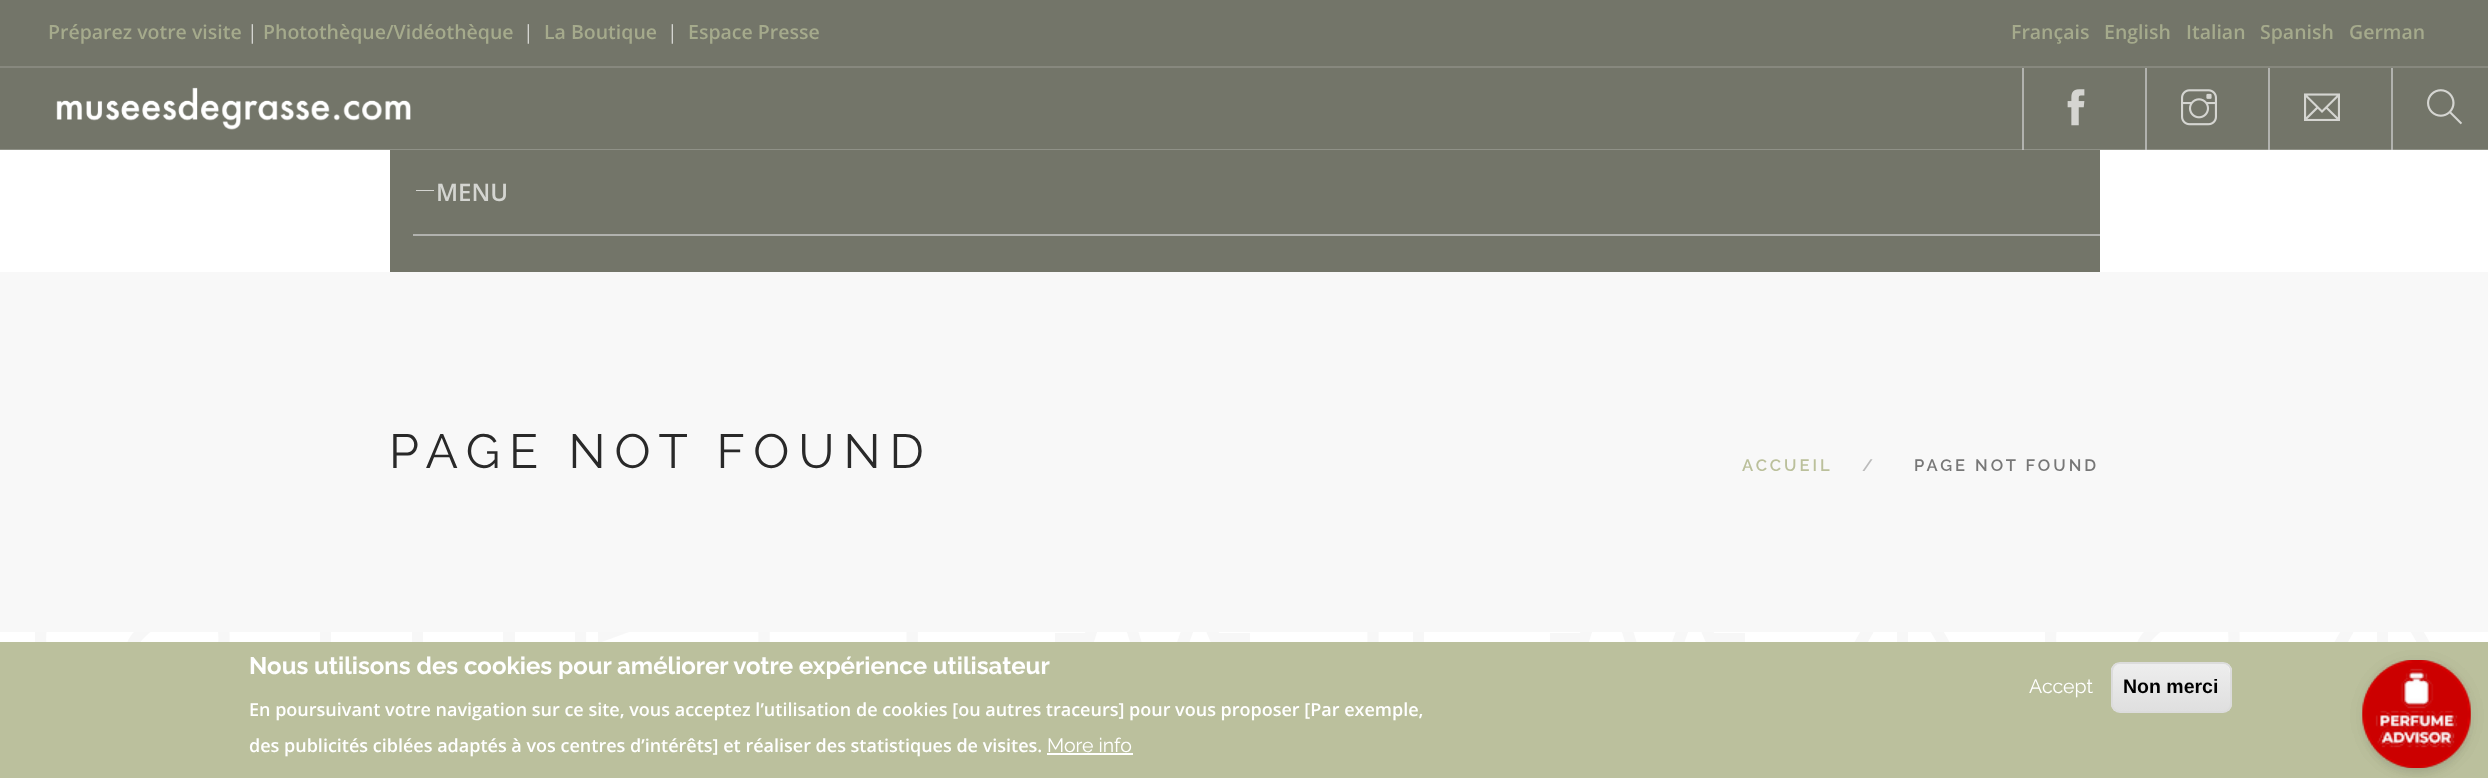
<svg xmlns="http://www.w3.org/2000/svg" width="2488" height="778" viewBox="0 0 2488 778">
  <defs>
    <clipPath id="clip1"><path d="M0 632h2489v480H0z"/></clipPath>
    <clipPath id="clip2"><rect x="2111" y="662" width="121" height="51" rx="9"/></clipPath>
    <linearGradient id="g1" gradientUnits="userSpaceOnUse" x1="2171" y1="663" x2="2171" y2="711"><stop offset="0.05" stop-color="#ededed"/><stop offset="1" stop-color="#dfdfdf"/></linearGradient>
  </defs>
  <rect width="100%" height="100%" fill="#fff"/>
  <path d="M0 0h2488v149H0z" fill="#737569"/>
  <path d="M2391 68h2v82H2391z" fill="#b1b2ae"/>
  <path d="M2268 68h2v82H2268z" fill="#b1b2ae"/>
  <path d="M2145 68h2v82H2145z" fill="#b1b2ae"/>
  <path d="M2022 68h2v82H2022z" fill="#b1b2ae"/>
  <path d="M0 149h2488v1H0z" fill="#8f9187"/>
  <path d="M2391 149h2v1H2391z" fill="#babab7"/>
  <path d="M2268 149h2v1H2268z" fill="#babab7"/>
  <path d="M2145 149h2v1H2145z" fill="#babab7"/>
  <path d="M2022 149h2v1H2022z" fill="#babab7"/>
  <path d="M0 66h2488v2H0z" fill="#87887e"/>
  <image x="56" y="87" width="355" height="43" href="img/1.png"/>
  <image x="2067" y="89" width="18" height="37" href="img/2.png"/>
  <image x="2181" y="89" width="36" height="37" href="img/3.png"/>
  <image x="2304" y="93" width="36" height="28" href="img/4.png"/>
  <image x="2427" y="89" width="35" height="36" href="img/5.png"/>
  <path d="M390 150h1710v122H390z" fill="#737569"/>
  <path d="M413 234h1687v2H413z" fill="#b1b2ae"/>
  <path d="M416 190h18v1H416z" fill="#d4d5d1"/>
  <path d="M0 272h2488v360H0z" fill="#f8f8f8"/>
  <image x="35" y="632" width="195" height="10" href="img/6.png"/>
  <g clip-path="url(#clip1)">
    <path d="M473 576C450 531 384 531 361 576H320V725H515V576ZM417 553C435 553 451 562 460 576H375C384 562 400 553 417 553ZM503 714H331V587H503ZM412 656H389V645H412V622H423V645H446V656H423V679H412Z" fill="#f7f7f7"/>
  </g>
  <image x="575" y="632" width="195" height="10" href="img/7.png"/>
  <image x="906" y="632" width="12" height="10" href="img/8.png"/>
  <g clip-path="url(#clip1)">
    <path d="M1219 633L1198 583L1158 696L1112 545L1085 633H1055V645H1093L1112 584L1158 732L1199 615L1212 645H1250V633Z" fill="#f7f7f7"/>
  </g>
  <image x="1367" y="632" width="57" height="10" href="img/9.png"/>
  <g clip-path="url(#clip1)">
    <path d="M1714 633L1693 583L1653 696L1607 545L1580 633H1550V645H1588L1607 584L1653 732L1694 615L1707 645H1745V633Z" fill="#f7f7f7"/>
    <path d="M1902 559L1807 725H1997ZM1902 582L1978 714H1827ZM1908 667H1897V622H1908ZM1914 691C1914 706 1891 706 1891 691C1891 676 1914 676 1914 691Z" fill="#f7f7f7"/>
  </g>
  <image x="2045" y="632" width="195" height="10" href="img/6.png"/>
  <g clip-path="url(#clip1)">
    <path d="M2382 559L2287 725H2477ZM2382 582L2458 714H2307ZM2388 667H2377V622H2388ZM2394 691C2394 706 2371 706 2371 691C2371 676 2394 676 2394 691Z" fill="#f7f7f7"/>
  </g>
  <path d="M0 642h2488v136H0z" fill="#bbc09d"/>
  <path d="M1047 753h86v2H1047z" fill="#fff"/>
  <g clip-path="url(#clip2)">
    <path d="M2111 663h121v48H2111z" fill="url(#g1)"/>
  </g>
  <path d="M2120 664H2223C2232 664 2230 678 2230 683V708C2230 706 2231 705 2231 703V671C2231 667 2227 663 2223 663H2120C2116 663 2112 667 2112 671V672C2112 668 2115 664 2120 664Z" fill="#fff"/>
  <rect x="2112" y="663" width="119" height="49" rx="8" fill="none" stroke="#dcdcdc" stroke-width="2"/>
  <rect x="2375" y="674" width="84" height="84" rx="42" fill="#0000001f" filter="blur(13.5px)"/>
  <rect x="2375" y="681" width="84" height="84" rx="42" fill="#00000024" filter="blur(7.5px)"/>
  <rect x="2376" y="678" width="81" height="81" rx="40.5" fill="#00000033" filter="blur(4px)"/>
  <image x="2362" y="660" width="109" height="108" href="img/10.png"/>
  <rect x="2375" y="674" width="84" height="84" rx="42" fill="#0000001f" filter="blur(13.5px)"/>
  <rect x="2375" y="681" width="84" height="84" rx="42" fill="#00000024" filter="blur(7.5px)"/>
  <rect x="2376" y="678" width="81" height="81" rx="40.5" fill="#00000033" filter="blur(4px)"/>
  <image x="2362" y="660" width="109" height="108" href="img/11.png"/>
  <text x="48" y="39" font-family="Open Sans" font-size="19.5" font-weight="600" fill="#a5aa8c">Préparez votre visite</text>
  <text x="247" y="39" font-family="Open Sans" font-size="19.5" fill="#d4d5d1">|</text>
  <text x="263" y="39" font-family="Open Sans" font-size="19.5" font-weight="600" fill="#a5aa8c">Photothèque/Vidéothèque</text>
  <text x="523" y="39" font-family="Open Sans" font-size="19.5" fill="#d4d5d1">|</text>
  <text x="544" y="39" font-family="Open Sans" font-size="19.5" font-weight="600" fill="#a5aa8c">La Boutique</text>
  <text x="667" y="39" font-family="Open Sans" font-size="19.5" fill="#d4d5d1">|</text>
  <g font-family="Open Sans" font-size="19.5" font-weight="600" fill="#a5aa8c">
    <text x="688" y="39">Espace Presse</text>
    <text x="2011" y="39">Français</text>
    <text x="2104" y="39">English</text>
    <text x="2186" y="39">Italian</text>
    <text x="2260" y="39">Spanish</text>
    <text x="2349" y="39">German</text>
  </g>
  <text x="436" y="201" font-family="Open Sans" font-size="24" font-weight="600" fill="#d4d5d1">MENU</text>
  <text x="389" y="468" font-family="Raleway" font-size="48" letter-spacing="9" fill="#292929">PAGE NOT FOUND</text>
  <text x="1742" y="471" font-family="Raleway" font-size="16.5" font-weight="600" letter-spacing="3" fill="#bbc09b">ACCUEIL</text>
  <text x="1862" y="471" font-family="Raleway" font-size="16.5" font-weight="600" letter-spacing="3" fill="#bbb">/</text>
  <text x="1914" y="471" font-family="Raleway" font-size="16.5" font-weight="600" letter-spacing="3" fill="#777">PAGE NOT FOUND</text>
  <text x="249" y="674" font-family="Raleway" font-size="24" font-weight="bold" fill="#fff">Nous utilisons des cookies pour améliorer votre expérience utilisateur</text>
  <g font-family="Open Sans" font-size="18" font-weight="600" fill="#fff">
    <text x="249" y="716">En poursuivant votre navigation sur ce site, vous acceptez l’utilisation de cookies [ou autres traceurs] pour vous proposer [Par exemple,</text>
    <text x="249" y="752">des publicités ciblées adaptés à vos centres d’intérêts] et réaliser des statistiques de visites.</text>
  </g>
  <g font-family="Raleway" font-size="19.5" fill="#fff">
    <text x="1047" y="752">More info</text>
    <text x="2029" y="693">Accept</text>
  </g>
  <text x="2123" y="693" font-family="Liberation Sans" font-size="19.5" font-weight="bold" fill="#000">Non merci</text>
</svg>
